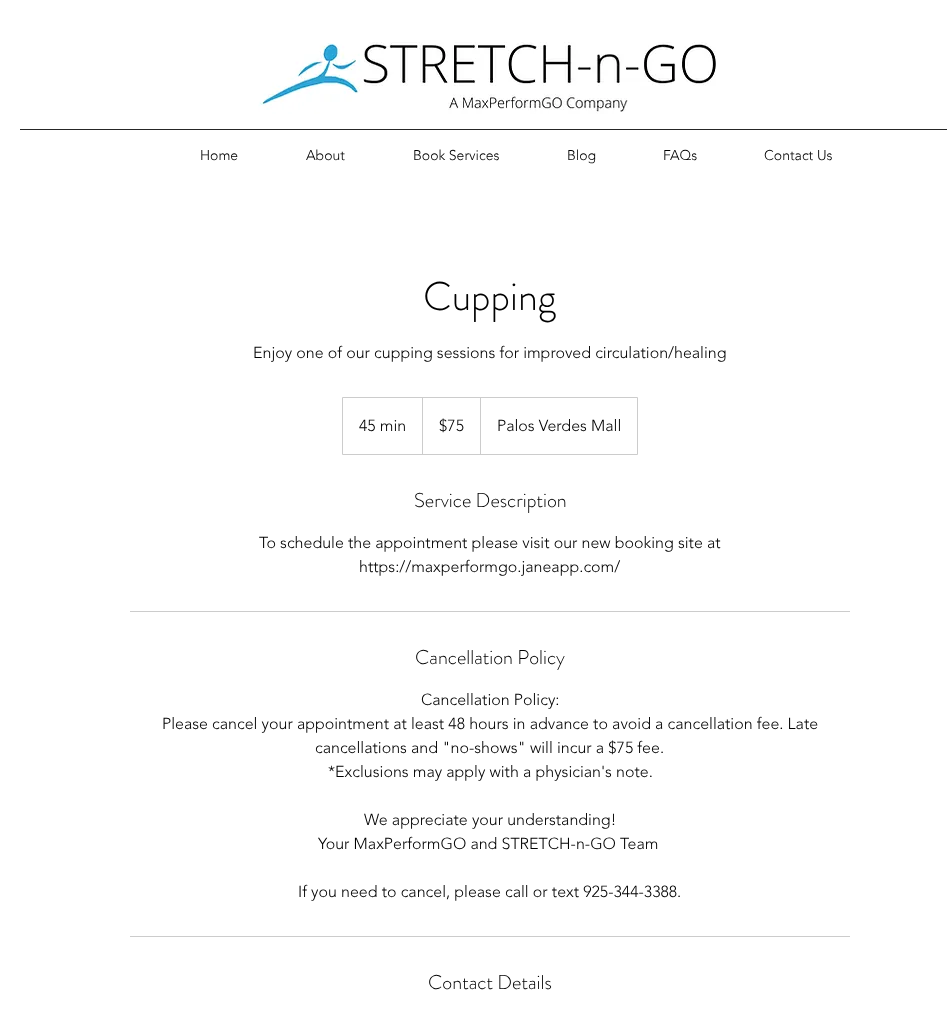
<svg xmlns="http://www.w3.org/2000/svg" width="947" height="1019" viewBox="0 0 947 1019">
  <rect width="100%" height="100%" fill="#fff"/>
  <image x="258" y="42" width="458" height="72" href="img/1.png"/>
  <path d="M20 129h927v1H20z" fill="#262626"/>
  <path d="M342.5 397.5h295v57H342.5z" fill="none" stroke="#ccc"/>
  <path d="M422 454V397L423 398V454Z" fill="#ccc"/>
  <path d="M480 454V397L481 398V454Z" fill="#ccc"/>
  <path d="M130 611h720v1H130z" fill="#ccc"/>
  <path d="M130 936h720v1H130z" fill="#ccc"/>
  <g font-family="'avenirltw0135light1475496'" font-size="14" font-weight="300" fill="#000">
    <text x="200" y="160">Home</text>
    <text x="306" y="160">About</text>
    <text x="413" y="160">Book Services</text>
    <text x="567" y="160">Blog</text>
    <text x="663" y="160">FAQs</text>
    <text x="764" y="160">Contact Us</text>
  </g>
  <text x="423" y="310" font-family="'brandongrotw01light'" font-size="40" font-weight="300" fill="#000">Cupping</text>
  <g font-family="'avenirltw0135light1475496'" font-size="16" font-weight="300" fill="#000">
    <text x="253" y="358">Enjoy one of our cupping sessions for improved circulation/healing</text>
    <text x="359" y="431">45 min</text>
    <text x="439" y="431">$75</text>
    <text x="497" y="431">Palos Verdes Mall</text>
  </g>
  <text x="414" y="507" font-family="'brandongrotw01light'" font-size="20" font-weight="300" fill="#000">Service Description</text>
  <g font-family="'avenirltw0135light1475496'" font-size="16" font-weight="300" fill="#000">
    <text x="259" y="548">To schedule the appointment please visit our new booking site at</text>
    <text x="359" y="572">https://maxperformgo.janeapp.com/</text>
  </g>
  <text x="415" y="664" font-family="'brandongrotw01light'" font-size="20" font-weight="300" fill="#000">Cancellation Policy</text>
  <g font-family="'avenirltw0135light1475496'" font-size="16" font-weight="300" fill="#000">
    <text x="421" y="705">Cancellation Policy:</text>
    <text x="162" y="729">Please cancel your appointment at least 48 hours in advance to avoid a cancellation fee. Late</text>
    <text x="315" y="753">cancellations and "no-shows" will incur a $75 fee.</text>
    <text x="328" y="777">*Exclusions may apply with a physician's note.</text>
    <text x="364" y="825">We appreciate your understanding!</text>
    <text x="318" y="849">Your MaxPerformGO and STRETCH-n-GO Team</text>
    <text x="298" y="897">If you need to cancel, please call or text 925-344-3388.</text>
  </g>
  <text x="428" y="989" font-family="'brandongrotw01light'" font-size="20" font-weight="300" fill="#000">Contact Details</text>
</svg>
